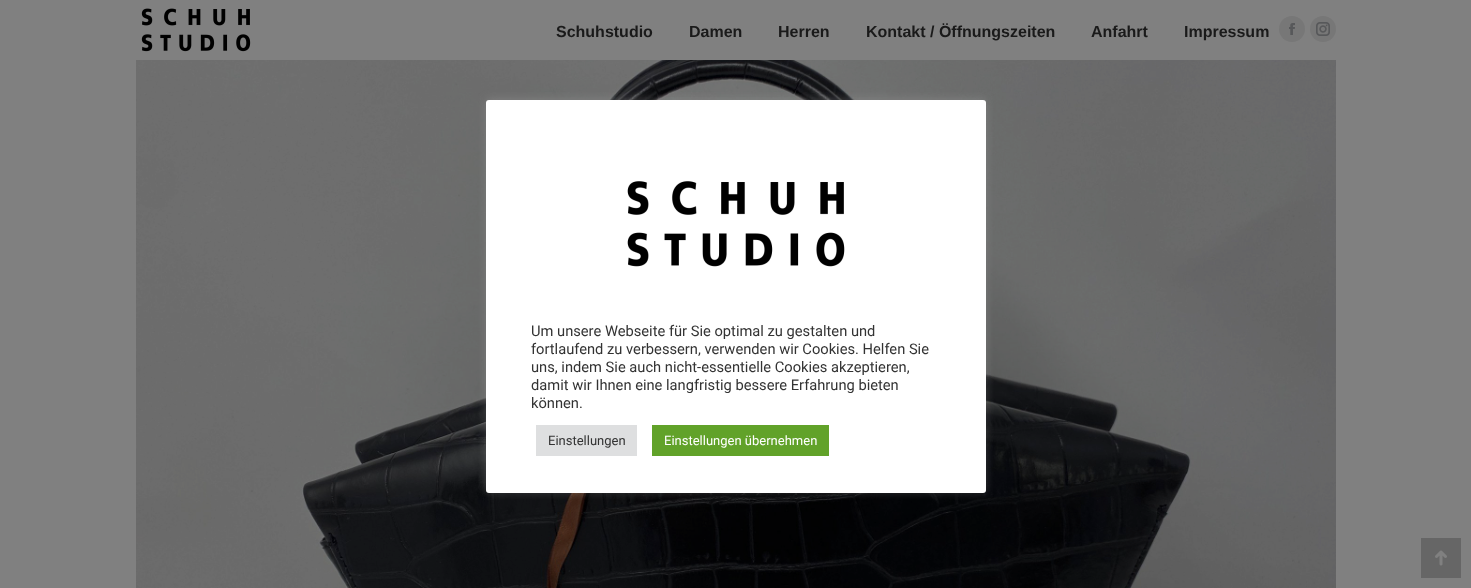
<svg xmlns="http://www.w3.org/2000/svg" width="1471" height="588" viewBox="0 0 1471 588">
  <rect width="100%" height="100%" fill="#808080"/>
  <image x="141" y="8" width="110" height="44" href="img/1.png"/>
  <circle cx="1292" cy="29" r="13" fill="#777"/>
  <image x="1289" y="23" width="6" height="12" href="img/2.png"/>
  <circle cx="1323" cy="29" r="13" fill="#777"/>
  <image x="1316" y="22" width="14" height="14" href="img/3.png"/>
  <image x="136" y="60" width="1200" height="528" href="img/4.png"/>
  <path d="M1421 538h40v40H1421z" fill="#666"/>
  <image x="1435" y="550" width="12" height="16" href="img/5.png"/>
  <rect x="486" y="99" width="500" height="393" rx="3" fill="#acabab4d" filter="blur(5px)"/>
  <rect x="486" y="100" width="500" height="393" rx="3" fill="#fff"/>
  <image x="627" y="181" width="218" height="86" href="img/6.png"/>
  <path d="M536 425h101v31H536z" fill="#dedfe0"/>
  <path d="M652 425h177v31H652z" fill="#61a229"/>
  <g font-family="Liberation Sans" font-size="16" font-weight="bold" fill="#1a1a1a">
    <text x="556" y="37">Schuhstudio</text>
    <text x="689" y="37">Damen</text>
    <text x="778" y="37">Herren</text>
    <text x="866" y="37">Kontakt / Öffnungszeiten</text>
    <text x="1091" y="37">Anfahrt</text>
    <text x="1184" y="37">Impressum</text>
  </g>
  <g font-family="Roboto" font-size="14.7" fill="#333">
    <text x="531" y="336">Um unsere Webseite für Sie optimal zu gestalten und</text>
    <text x="531" y="354">fortlaufend zu verbessern, verwenden wir Cookies. Helfen Sie</text>
    <text x="531" y="372">uns, indem Sie auch nicht-essentielle Cookies akzeptieren,</text>
    <text x="531" y="390">damit wir Ihnen eine langfristig bessere Erfahrung bieten</text>
    <text x="531" y="408">können.</text>
  </g>
  <text x="548" y="445" font-family="Roboto" font-size="13" fill="#333">Einstellungen</text>
  <text x="664" y="445" font-family="Roboto" font-size="13" fill="#fff">Einstellungen übernehmen</text>
</svg>
